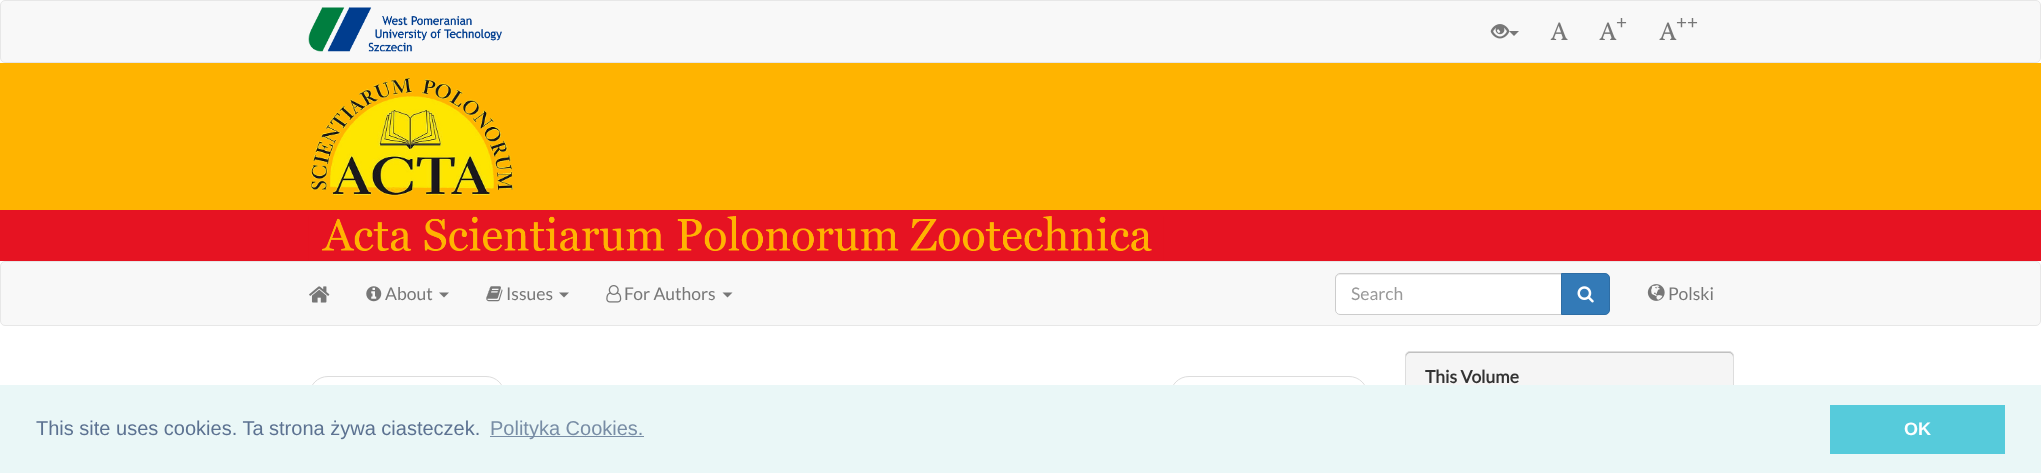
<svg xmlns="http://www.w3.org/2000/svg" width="2041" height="473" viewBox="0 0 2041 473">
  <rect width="100%" height="100%" fill="#fff"/>
  <rect x="0.5" y="0.5" width="2040" height="62" rx="4.5" fill="#f8f8f8" stroke="#e7e7e7"/>
  <image x="308" y="7" width="194" height="45" href="img/1.png"/>
  <path d="M1509 31H1519L1514 36Z" fill="#777"/>
  <image x="1490" y="24" width="20" height="15" href="img/2.png"/>
  <image x="1550" y="22" width="18" height="18" href="img/3.png"/>
  <image x="1599" y="22" width="18" height="18" href="img/4.png"/>
  <image x="1659" y="22" width="18" height="18" href="img/4.png"/>
  <path d="M0 63h2041v147H0z" fill="#ffb400"/>
  <image x="310" y="77" width="204" height="119" href="img/5.png"/>
  <path d="M0 210h2041v51H0z" fill="#e61322"/>
  <image x="308" y="216" width="856" height="45" href="img/6.png"/>
  <rect x="0.5" y="261.5" width="2040" height="64" rx="4.5" fill="#f8f8f8" stroke="#e7e7e7"/>
  <image x="309" y="286" width="21" height="17" href="img/7.png"/>
  <image x="366" y="286" width="16" height="16" href="img/8.png"/>
  <path d="M439 292.5H449L444 297.5Z" fill="#777"/>
  <image x="486" y="286" width="17" height="16" href="img/9.png"/>
  <path d="M559 292.5H569L564 297.5Z" fill="#777"/>
  <image x="606" y="285" width="16" height="18" href="img/10.png"/>
  <path d="M722.5 292.5H732.5L727.5 297.5Z" fill="#777"/>
  <path d="M1340 273H1563V315H1340C1337 315 1335 313 1335 310V278C1335 275 1337 273 1340 273Z" fill="#fff"/>
  <path d="M1340 275H1561V274H1340C1337 274 1336 276 1336 279C1336 277 1338 275 1340 275Z" fill="#ececec"/>
  <path d="M1340 273.5H1562.5V314.5H1340C1337.5 314.5 1335.5 312.5 1335.5 310V278C1335.5 275.5 1337.5 273.5 1340 273.5Z" fill="none" stroke="#ccc"/>
  <path d="M1561.5 273.5H1605C1607.5 273.5 1609.5 275.5 1609.5 278V310C1609.5 312.5 1607.5 314.5 1605 314.5H1561.5Z" fill="#337ab7" stroke="#2e6da4"/>
  <image x="1577" y="286" width="17" height="17" href="img/11.png"/>
  <image x="1647" y="284" width="18" height="17" href="img/12.png"/>
  <rect x="309.5" y="376.5" width="195" height="39" rx="18.5" fill="none" stroke="#ddd"/>
  <rect x="1170.5" y="376.5" width="197" height="39" rx="18.5" fill="none" stroke="#ddd"/>
  <rect x="1405.5" y="351.5" width="328" height="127" rx="4.5" fill="#c0c0c0" stroke="#ddd"/>
  <path d="M1410 353H1729C1731 353 1733 355 1733 357V404H1406V357C1406 355 1408 353 1410 353Z" fill="#f5f5f5"/>
  <path d="M0 385h2041v88H0z" fill="#eaf7f7"/>
  <path d="M490 436h154v1H490z" fill="#788da5"/>
  <path d="M1830 405h175v49H1830z" fill="#56cbdb"/>
  <g font-family="Lato" font-size="19" fill="#777">
    <text x="1616" y="29">+</text>
    <text x="1676" y="29">++</text>
  </g>
  <g font-family="Lato" font-size="17.5" fill="#777">
    <text x="385" y="300">About</text>
    <text x="506" y="300">Issues</text>
    <text x="624" y="300">For Authors</text>
  </g>
  <text x="1351" y="300" font-family="Lato" font-size="17.5" fill="#999">Search</text>
  <text x="1668" y="300" font-family="Lato" font-size="17.5" fill="#777">Polski</text>
  <text x="1425" y="383" font-family="Lato" font-size="17.5" font-weight="bold" fill="#333">This Volume</text>
  <text x="36" y="435" font-family="Liberation Sans" font-size="20" fill="#5c7291">This site uses cookies. Ta strona żywa ciasteczek.</text>
  <text x="490" y="435" font-family="Liberation Sans" font-size="20" fill="#788da5">Polityka Cookies.</text>
  <text x="1904" y="435" font-family="Liberation Sans" font-size="18" font-weight="bold" fill="#fff">OK</text>
</svg>
